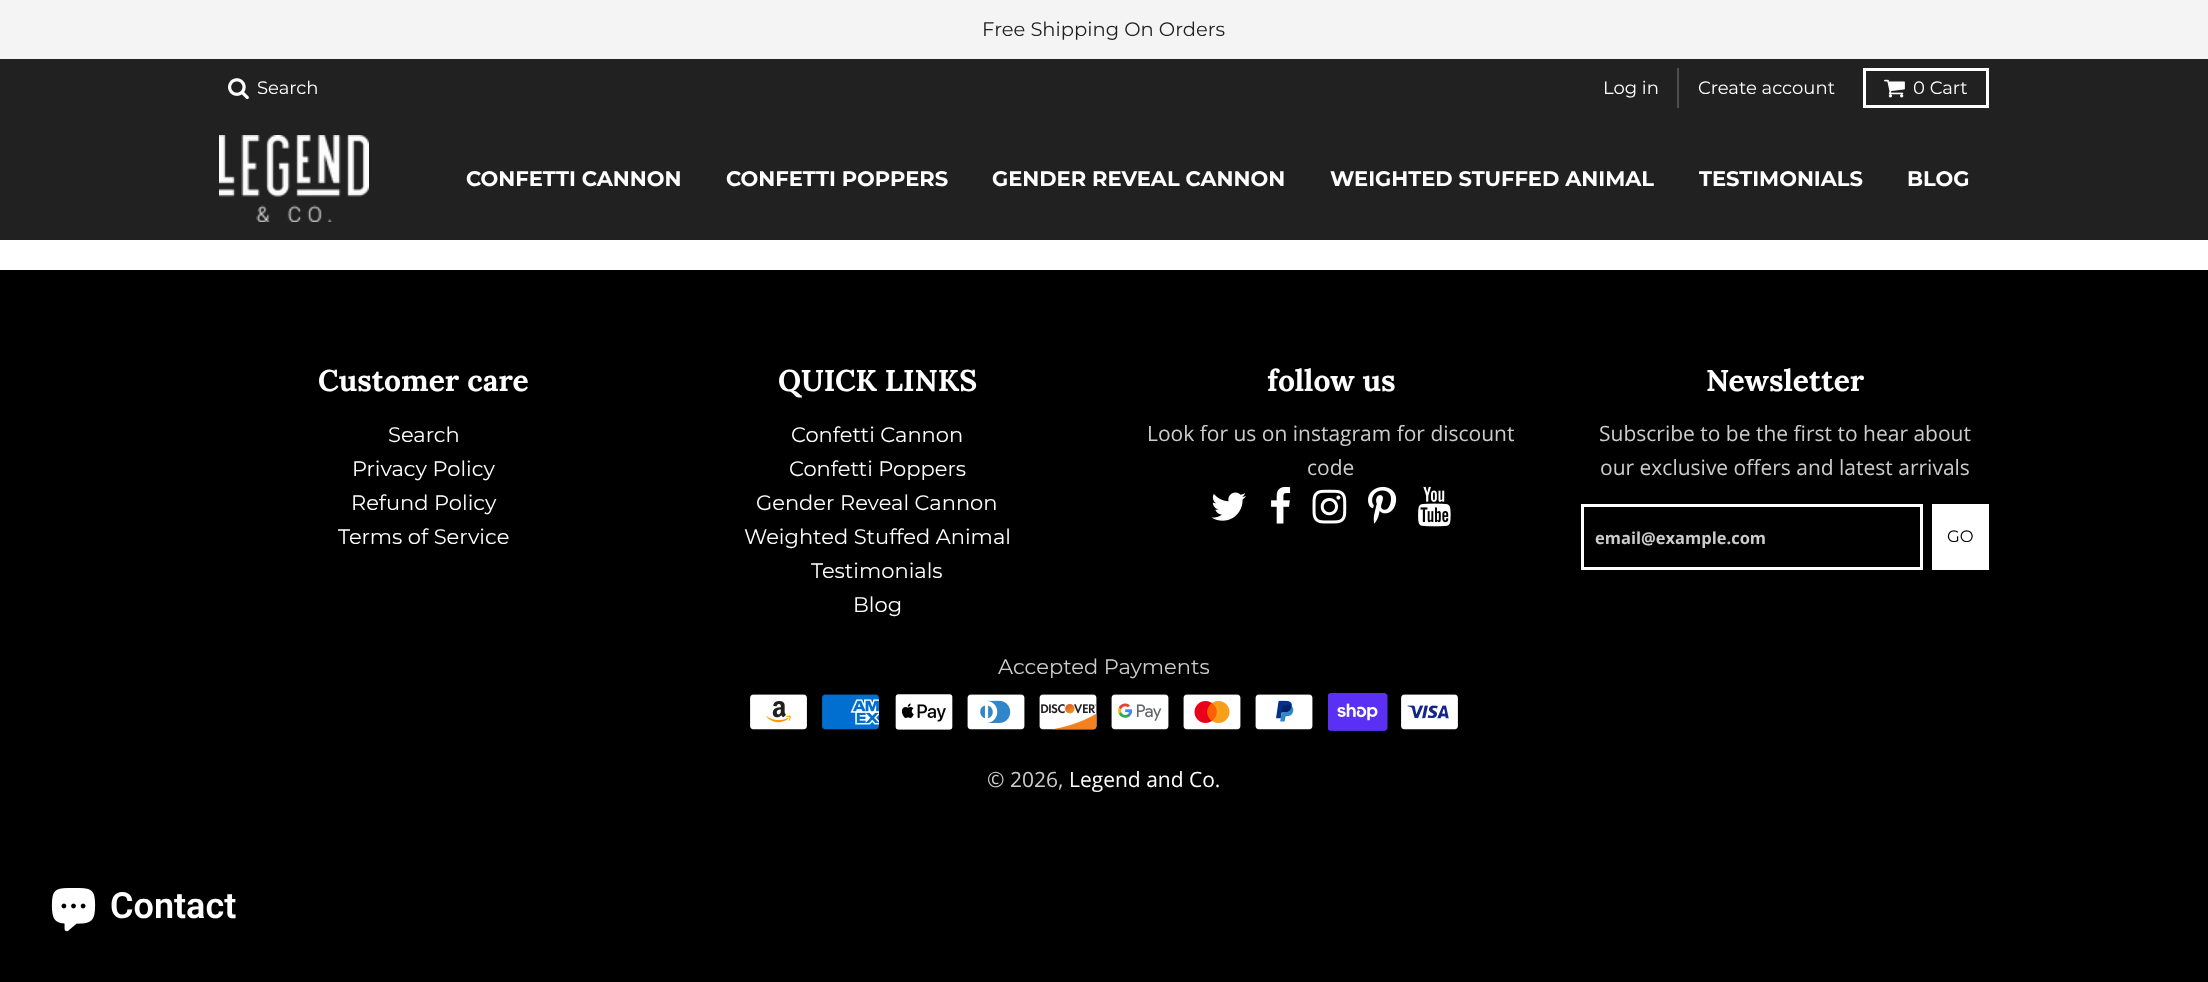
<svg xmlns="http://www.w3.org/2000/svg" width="2208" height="982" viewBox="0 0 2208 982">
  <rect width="100%" height="100%" fill="#000"/>
  <path d="M0 240h2208v30H0z" fill="#fff"/>
  <path d="M0 0h2208v59H0z" fill="#f4f4f4"/>
  <path d="M0 59h2208v181H0z" fill="#212121"/>
  <image x="228" y="78" width="21" height="22" href="img/1.png"/>
  <path d="M1677 68h2v40H1677z" fill="#4d4d4d"/>
  <path d="M1864.5 69.5h123v37H1864.5z" fill="none" stroke="#fff" stroke-width="3"/>
  <image x="1884" y="79" width="21" height="19" href="img/2.png"/>
  <image x="219" y="135" width="150" height="87" href="img/3.png"/>
  <image x="1211" y="492" width="35" height="29" href="img/4.png"/>
  <image x="1271" y="486" width="20" height="38" href="img/5.png"/>
  <image x="1312" y="489" width="35" height="35" href="img/6.png"/>
  <image x="1368" y="486" width="29" height="38" href="img/7.png"/>
  <image x="1418" y="486" width="33" height="41" href="img/8.png"/>
  <path d="M1582.5 505.5h339v63H1582.5z" fill="none" stroke="#fff" stroke-width="3"/>
  <path d="M1932 504h57v66H1932z" fill="#fff"/>
  <image x="750" y="694" width="57" height="36" href="img/9.png"/>
  <image x="822" y="694" width="57" height="36" href="img/10.png"/>
  <image x="895" y="694" width="58" height="36" href="img/11.png"/>
  <image x="967" y="694" width="58" height="36" href="img/12.png"/>
  <image x="1039" y="694" width="58" height="36" href="img/13.png"/>
  <image x="1111" y="694" width="58" height="36" href="img/14.png"/>
  <image x="1183" y="694" width="58" height="36" href="img/15.png"/>
  <image x="1255" y="694" width="58" height="36" href="img/16.png"/>
  <image x="1328" y="693" width="60" height="38" href="img/17.png"/>
  <image x="1401" y="694" width="57" height="36" href="img/18.png"/>
  <image x="51" y="888" width="45" height="44" href="img/19.png"/>
  <text x="982" y="36" font-family="Montserrat" font-size="19.5" fill="#212121">Free Shipping On Orders</text>
  <g font-family="Montserrat" font-size="18" fill="#fff">
    <text x="257" y="94">Search</text>
    <text x="1603" y="94">Log in</text>
    <text x="1698" y="94">Create account</text>
    <text x="1913" y="94">0 Cart</text>
  </g>
  <g font-family="Montserrat" font-size="21" font-weight="bold" fill="#fff">
    <text x="466" y="186">CONFETTI CANNON</text>
    <text x="726" y="186">CONFETTI POPPERS</text>
    <text x="992" y="186">GENDER REVEAL CANNON</text>
    <text x="1330" y="186">WEIGHTED STUFFED ANIMAL</text>
    <text x="1699" y="186">TESTIMONIALS</text>
    <text x="1907" y="186">BLOG</text>
  </g>
  <text x="318" y="391" font-family="Lora" font-size="30" font-weight="bold" fill="#fff">Customer care</text>
  <g font-family="Montserrat" font-size="21" fill="#fff">
    <text x="388" y="442">Search</text>
    <text x="352" y="476">Privacy Policy</text>
    <text x="351" y="510">Refund Policy</text>
    <text x="338" y="544">Terms of Service</text>
  </g>
  <text x="778" y="391" font-family="Lora" font-size="30" font-weight="bold" fill="#fff">QUICK LINKS</text>
  <g font-family="Montserrat" font-size="21" fill="#fff">
    <text x="791" y="442">Confetti Cannon</text>
    <text x="789" y="476">Confetti Poppers</text>
    <text x="756" y="510">Gender Reveal Cannon</text>
    <text x="744" y="544">Weighted Stuffed Animal</text>
    <text x="811" y="578">Testimonials</text>
    <text x="853" y="612">Blog</text>
  </g>
  <text x="1267" y="391" font-family="Lora" font-size="30" font-weight="bold" fill="#fff">follow us</text>
  <g font-family="Open Sans" font-size="21" fill="#ccc">
    <text x="1147" y="441">Look for us on instagram for discount</text>
    <text x="1307" y="475">code</text>
  </g>
  <text x="1706" y="391" font-family="Lora" font-size="30" font-weight="bold" fill="#fff">Newsletter</text>
  <g font-family="Open Sans" font-size="21" fill="#ccc">
    <text x="1599" y="441">Subscribe to be the first to hear about</text>
    <text x="1600" y="475">our exclusive offers and latest arrivals</text>
  </g>
  <text x="1595" y="544" font-family="Open Sans" font-size="16.5" font-weight="bold" fill="#ccc">email@example.com</text>
  <text x="1947" y="542" font-family="Montserrat" font-size="16.5" fill="#000">GO</text>
  <text x="998" y="674" font-family="Montserrat" font-size="21" fill="#ccc">Accepted Payments</text>
  <text x="987" y="787" font-family="Open Sans" font-size="21" fill="#ccc">© 2026,</text>
  <text x="1069" y="787" font-family="Open Sans" font-size="21" fill="#fff">Legend and Co.</text>
  <text x="110" y="918" font-family="Roboto" font-size="36" font-weight="600" fill="#fff">Contact</text>
</svg>
